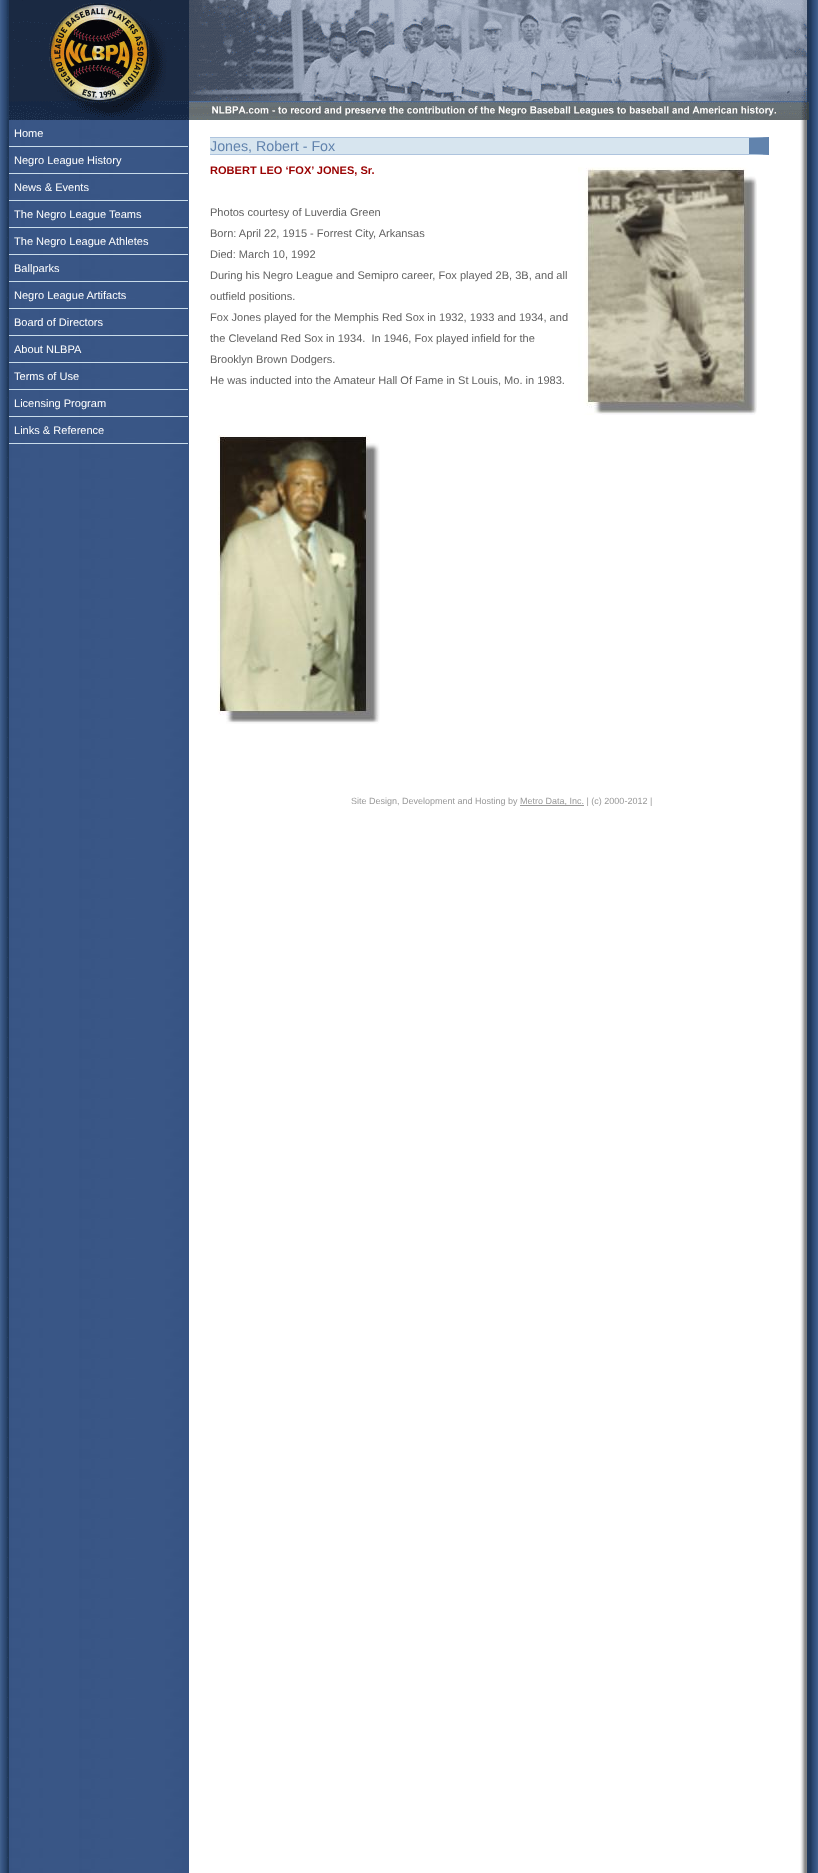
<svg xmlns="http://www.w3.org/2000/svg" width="818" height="1873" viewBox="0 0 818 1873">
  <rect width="100%" height="100%" fill="#fff"/>
  <image x="0" y="0" width="818" height="1873" href="img/1.png"/>
  <image x="9" y="0" width="800" height="120" href="img/2.png"/>
  <path d="M9 146h179v1H9z" fill="#c9dcea"/>
  <path d="M9 173h179v1H9z" fill="#c9dcea"/>
  <path d="M9 200h179v1H9z" fill="#c9dcea"/>
  <path d="M9 227h179v1H9z" fill="#c9dcea"/>
  <path d="M9 254h179v1H9z" fill="#c9dcea"/>
  <path d="M9 281h179v1H9z" fill="#c9dcea"/>
  <path d="M9 308h179v1H9z" fill="#c9dcea"/>
  <path d="M9 335h179v1H9z" fill="#c9dcea"/>
  <path d="M9 362h179v1H9z" fill="#c9dcea"/>
  <path d="M9 389h179v1H9z" fill="#c9dcea"/>
  <path d="M9 416h179v1H9z" fill="#c9dcea"/>
  <path d="M9 443h179v1H9z" fill="#c9dcea"/>
  <path d="M210 137h559v18H210z" fill="#d7e5ef"/>
  <path d="M210 137H769L749 138H210Z" fill="#aec4de"/>
  <path d="M769 137V155L749 154V138Z" fill="#6183ad"/>
  <path d="M769 155H210V154H749Z" fill="#aec4de"/>
  <image x="578" y="167" width="179" height="248" href="img/3.png"/>
  <image x="217" y="435" width="163" height="289" href="img/4.png"/>
  <path d="M520 805h64v1H520z" fill="#999"/>
  <g font-family="Liberation Sans" font-size="11.05" fill="#fff">
    <text x="14" y="137">Home</text>
    <text x="14" y="164">Negro League History</text>
    <text x="14" y="191">News &amp; Events</text>
    <text x="14" y="218">The Negro League Teams</text>
    <text x="14" y="245">The Negro League Athletes</text>
    <text x="14" y="272">Ballparks</text>
    <text x="14" y="299">Negro League Artifacts</text>
    <text x="14" y="326">Board of Directors</text>
    <text x="14" y="353">About NLBPA</text>
    <text x="14" y="380">Terms of Use</text>
    <text x="14" y="407">Licensing Program</text>
    <text x="14" y="434">Links &amp; Reference</text>
  </g>
  <text x="210" y="151" font-family="Liberation Sans" font-size="14.25" fill="#6183ad">Jones, Robert - Fox</text>
  <text x="210" y="174" font-family="Liberation Sans" font-size="11.05" font-weight="bold" fill="#900">ROBERT LEO ‘FOX’ JONES, Sr.</text>
  <g font-family="Liberation Sans" font-size="11.05" fill="#616161">
    <text x="210" y="216">Photos courtesy of Luverdia Green</text>
    <text x="210" y="237">Born: April 22, 1915 - Forrest City, Arkansas</text>
    <text x="210" y="258">Died: March 10, 1992</text>
    <text x="210" y="279">During his Negro League and Semipro career, Fox played 2B, 3B, and all</text>
    <text x="210" y="300">outfield positions.</text>
    <text x="210" y="321">Fox Jones played for the Memphis Red Sox in 1932, 1933 and 1934, and</text>
    <text x="210" y="342" xml:space="preserve">the Cleveland Red Sox in 1934.  In 1946, Fox played infield for the</text>
    <text x="210" y="363">Brooklyn Brown Dodgers.</text>
    <text x="210" y="384">He was inducted into the Amateur Hall Of Fame in St Louis, Mo. in 1983.</text>
  </g>
  <g font-family="Liberation Sans" font-size="9" fill="#999">
    <text x="351" y="804">Site Design, Development and Hosting by</text>
    <text x="520" y="804">Metro Data, Inc. | (c) 2000-2012 |</text>
  </g>
</svg>
